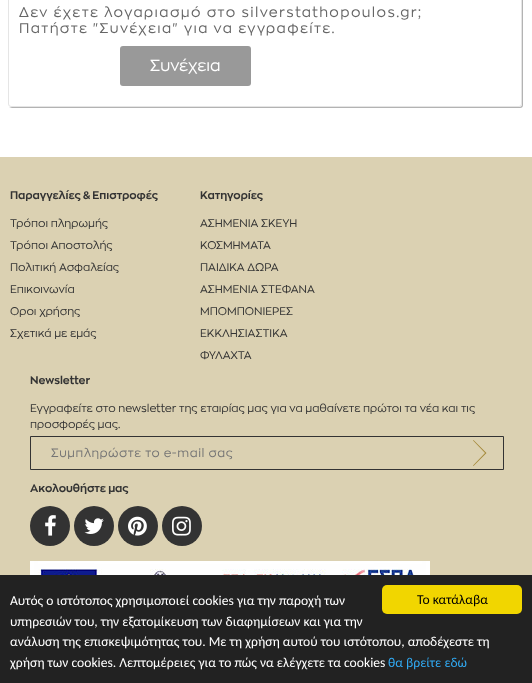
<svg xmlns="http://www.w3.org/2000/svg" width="532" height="683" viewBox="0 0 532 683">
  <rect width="100%" height="100%" fill="#fff"/>
  <path d="M9 107C10 107 11 108 12 108H520C522 108 523 107 523 105V-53C523-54 522-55 522-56V-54V104C522 106 521 107 519 107H11Z" fill="#b3b3b3"/>
  <rect x="8.5" y="-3.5" width="513" height="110" rx="2.5" fill="none" stroke="#e5e5e5"/>
  <rect x="120" y="46" width="131" height="40" rx="3" fill="#999"/>
  <path d="M0 157h532v418H0z" fill="#dbd1b2"/>
  <path d="M30.5 436.5h473v33H30.5z" fill="none" stroke="#333"/>
  <path d="M473 440.5L485 453L473 465.5L473.5 466L486.5 453L473.5 440Z" fill="#a68b3d"/>
  <circle cx="50" cy="526" r="20" fill="#333"/>
  <image x="45" y="515" width="11" height="21" href="img/1.png"/>
  <circle cx="94" cy="526" r="20" fill="#333"/>
  <image x="84" y="518" width="20" height="16" href="img/2.png"/>
  <circle cx="138" cy="526" r="20" fill="#333"/>
  <image x="128" y="516" width="19" height="20" href="img/3.png"/>
  <circle cx="182" cy="526" r="20" fill="#333"/>
  <image x="172" y="516" width="19" height="20" href="img/4.png"/>
  <image x="30" y="561" width="400" height="14" href="img/5.png"/>
  <path d="M0 575h532v108H0z" fill="#222"/>
  <rect x="382" y="585" width="140" height="29" rx="5" fill="#f1d600"/>
  <g font-family="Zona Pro" font-size="14" letter-spacing="1.4" fill="#666">
    <text x="19" y="17">Δεν έχετε λογαριασμό στο silverstathopoulos.gr;</text>
    <text x="19" y="33">Πατήστε "Συνέχεια" για να εγγραφείτε.</text>
  </g>
  <text x="150" y="71" font-family="Zona Pro" font-size="16" fill="#fff">Συνέχεια</text>
  <text x="10" y="199" font-family="Zona Pro" font-size="11" font-weight="bold" fill="#333">Παραγγελίες &amp; Επιστροφές</text>
  <g font-family="Zona Pro" font-size="11" fill="#333">
    <text x="10" y="227">Τρόποι πληρωμής</text>
    <text x="10" y="249">Τρόποι Αποστολής</text>
    <text x="10" y="271">Πολιτική Ασφαλείας</text>
    <text x="10" y="293">Επικοινωνία</text>
    <text x="10" y="315">Οροι χρήσης</text>
    <text x="10" y="337">Σχετικά με εμάς</text>
  </g>
  <text x="200" y="199" font-family="Zona Pro" font-size="11" font-weight="bold" fill="#333">Κατηγορίες</text>
  <g font-family="Zona Pro" font-size="11" fill="#333">
    <text x="200" y="227">ΑΣΗΜΕΝΙΑ ΣΚΕΥΗ</text>
    <text x="200" y="249">ΚΟΣΜΗΜΑΤΑ</text>
    <text x="200" y="271">ΠΑΙΔΙΚΑ ΔΩΡΑ</text>
    <text x="200" y="293">ΑΣΗΜΕΝΙΑ ΣΤΕΦΑΝΑ</text>
    <text x="200" y="315">ΜΠΟΜΠΟΝΙΕΡΕΣ</text>
    <text x="200" y="337">ΕΚΚΛΗΣΙΑΣΤΙΚΑ</text>
    <text x="200" y="359">ΦΥΛΑΧΤΑ</text>
  </g>
  <text x="30" y="384" font-family="Zona Pro" font-size="11" font-weight="bold" fill="#333">Newsletter</text>
  <g font-family="Zona Pro" font-size="11" fill="#333">
    <text x="30" y="412">Εγγραφείτε στο newsletter της εταιρίας μας για να μαθαίνετε πρώτοι τα νέα και τις</text>
    <text x="30" y="428">προσφορές μας.</text>
  </g>
  <text x="51" y="457" font-family="Zona Pro" font-size="12" letter-spacing="0.6" fill="#757575">Συμπληρώστε το e-mail σας</text>
  <text x="30" y="492" font-family="Zona Pro" font-size="11" font-weight="bold" fill="#333">Ακολουθήστε μας</text>
  <text x="417" y="604" font-family="Carlito" font-size="13.6" fill="#000">Το κατάλαβα</text>
  <g font-family="Carlito" font-size="13.6" fill="#fff">
    <text x="10" y="605">Αυτός ο ιστότοπος χρησιμοποιεί cookies για την παροχή των</text>
    <text x="10" y="626">υπηρεσιών του, την εξατομίκευση των διαφημίσεων και για την</text>
    <text x="10" y="646">ανάλυση της επισκεψιμότητας του. Με τη χρήση αυτού του ιστότοπου, αποδέχεστε τη</text>
    <text x="10" y="667">χρήση των cookies. Λεπτομέρειες για το πώς να ελέγχετε τα cookies</text>
  </g>
  <text x="388" y="667" font-family="Carlito" font-size="13.6" fill="#31a8f0">θα βρείτε εδώ</text>
</svg>
